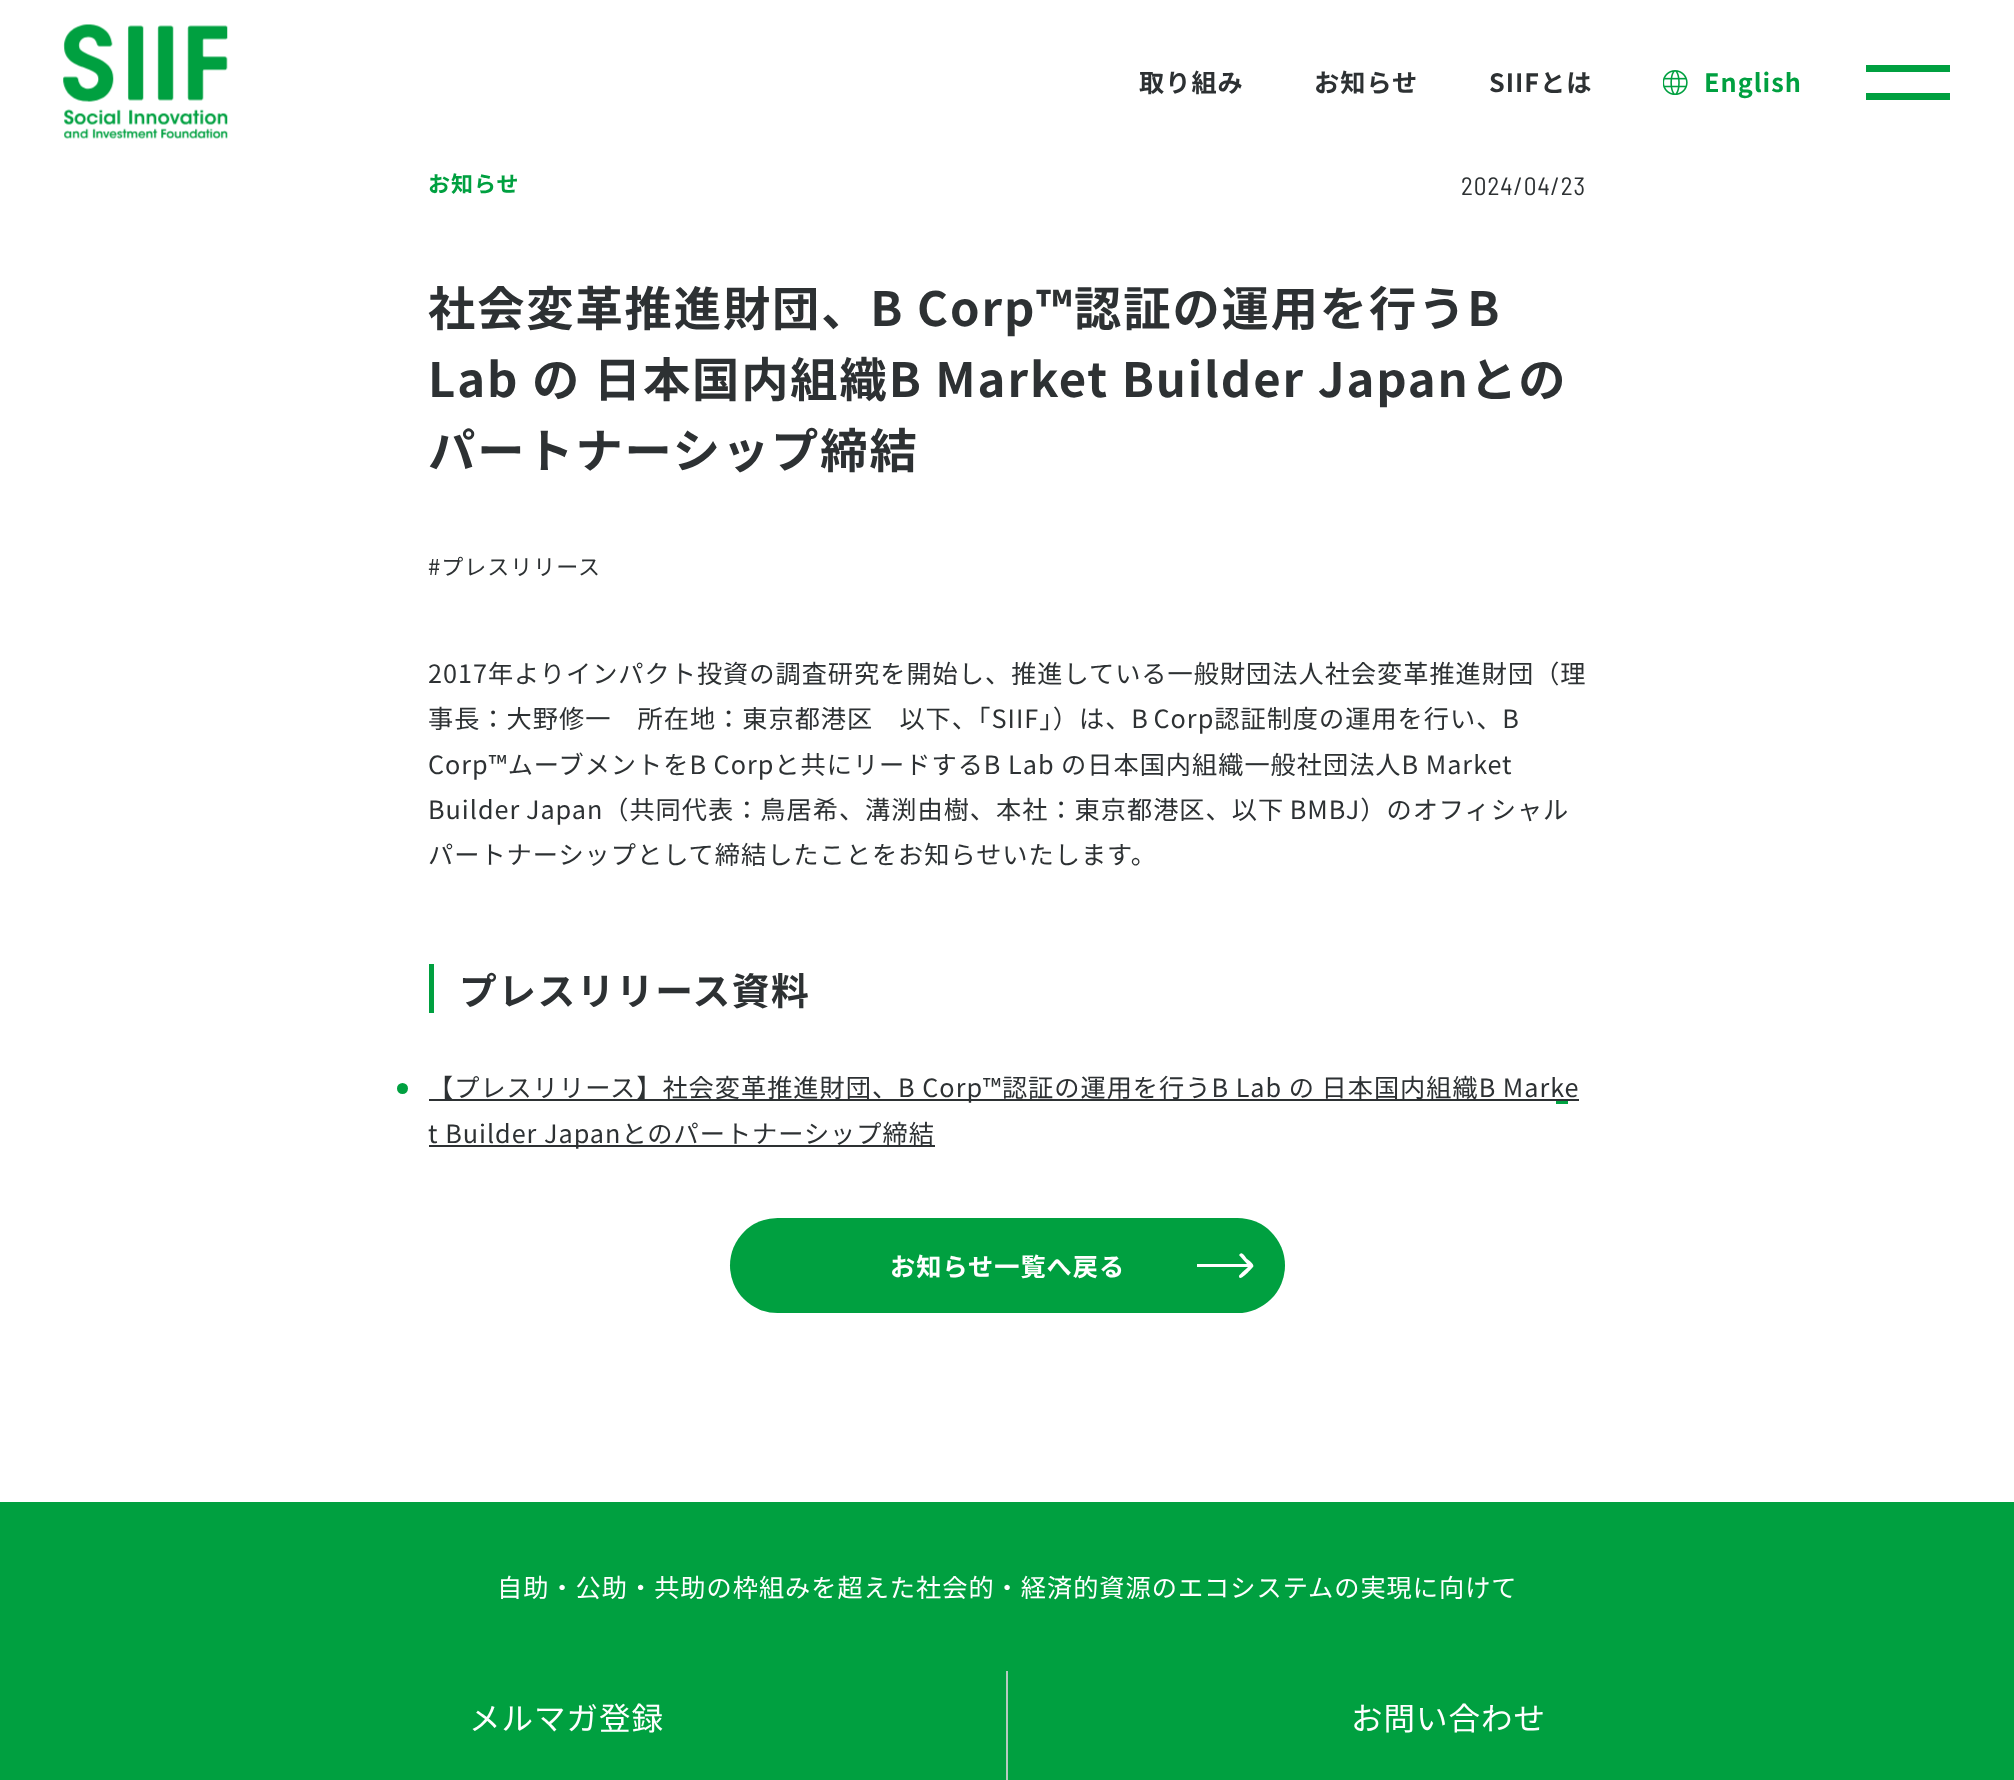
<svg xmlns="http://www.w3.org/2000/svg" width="2014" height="1780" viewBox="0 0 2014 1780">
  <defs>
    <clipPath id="clip1"><path d="M1556 1101h17v3H1556z"/></clipPath>
  </defs>
  <rect width="100%" height="100%" fill="#fff"/>
  <image x="63" y="24" width="165" height="115" href="img/1.png"/>
  <image x="1663" y="70" width="25" height="25" href="img/2.png"/>
  <path d="M1866 65h84v7H1866z" fill="#00a040"/>
  <path d="M1866 93h84v7H1866z" fill="#00a040"/>
  <path d="M429 964h5v49H429z" fill="#00a040"/>
  <circle cx="402.5" cy="1088.5" r="5.5" fill="#00a040"/>
  <g clip-path="url(#clip1)">
    <path d="M1572.5 1105.5V1118H1560V1115H1569.5V1105.5ZM1568 1101H1556V1113H1568Z" fill="#00a241"/>
  </g>
  <path d="M429 1099h1150v2H429z" fill="#2d3133"/>
  <path d="M429 1145h506v2H429z" fill="#2d3133"/>
  <rect x="730" y="1218" width="555" height="95" rx="47.5" fill="#00a040"/>
  <path d="M1253 1267C1251 1269 1239 1283 1239 1276C1239 1275 1246 1269 1248 1267H1197V1264H1247L1239 1255L1240 1254C1242 1251 1246 1258 1247 1259C1249 1260 1255 1265 1253 1267Z" fill="#fff"/>
  <path d="M0 1502h2014v278H0z" fill="#00a040"/>
  <path d="M1006 1671h2v109H1006z" fill="#b6cac1"/>
  <g font-family="Noto Sans JP" font-size="25.2" font-weight="bold" letter-spacing="1" fill="#2d3133">
    <text x="1139" y="92">取り組み</text>
    <text x="1314" y="92">お知らせ</text>
    <text x="1489" y="92">SIIFとは</text>
  </g>
  <text x="1704" y="92" font-family="Noto Sans JP" font-size="25.2" font-weight="bold" letter-spacing="1" fill="#00a040">English</text>
  <text x="428" y="192" font-family="Noto Sans JP" font-size="22" font-weight="bold" letter-spacing="1" fill="#00a040">お知らせ</text>
  <text x="1461" y="195" font-family="Barlow Semi Condensed" font-size="25.2" letter-spacing="1" fill="#2d3133">2024/04/23</text>
  <g font-family="Noto Sans JP" font-size="47.25" font-weight="bold" letter-spacing="1.9" fill="#2d3133">
    <text x="428" y="326">社会変革推進財団、B Corp™認証の運用を行うB</text>
    <text x="428" y="397">Lab の 日本国内組織B Market Builder Japanとの</text>
    <text x="428" y="468">パートナーシップ締結</text>
  </g>
  <text x="428" y="575" font-family="Noto Sans JP" font-size="22" letter-spacing="1" fill="#2d3133">#プレスリリース</text>
  <g font-family="Noto Sans JP" font-size="25.2" letter-spacing="1" fill="#2d3133">
    <text x="428" y="683">2017年よりインパクト投資の調査研究を開始し、推進している一般財団法人社会変革推進財団（理</text>
    <text x="428" y="728" word-spacing="-2">事長：大野修一　所在地：東京都港区　以下、「SIIF」）は、B Corp認証制度の運用を行い、B</text>
    <text x="428" y="774">Corp™ムーブメントをB Corpと共にリードするB Lab の日本国内組織一般社団法人B Market</text>
    <text x="428" y="819" word-spacing="-1">Builder Japan（共同代表：鳥居希、溝渕由樹、本社：東京都港区、以下 BMBJ）のオフィシャル</text>
    <text x="428" y="864">パートナーシップとして締結したことをお知らせいたします。</text>
  </g>
  <text x="459" y="1005" font-family="Noto Sans JP" font-size="37.75" font-weight="bold" letter-spacing="1.5" fill="#2d3133">プレスリリース資料</text>
  <g font-family="Noto Sans JP" font-size="25.2" letter-spacing="1" fill="#2d3133">
    <text x="428" y="1097">【プレスリリース】社会変革推進財団、B Corp™認証の運用を行うB Lab の 日本国内組織B Marke</text>
    <text x="428" y="1143">t Builder Japanとのパートナーシップ締結</text>
  </g>
  <text x="890" y="1276" font-family="Noto Sans JP" font-size="25.2" font-weight="bold" letter-spacing="1" fill="#fff">お知らせ一覧へ戻る</text>
  <text x="497" y="1597" font-family="Noto Sans JP" font-size="25.2" letter-spacing="1" fill="#fff">自助・公助・共助の枠組みを超えた社会的・経済的資源のエコシステムの実現に向けて</text>
  <g font-family="Noto Sans JP" font-size="31.5" letter-spacing="1" fill="#fff">
    <text x="469" y="1730">メルマガ登録</text>
    <text x="1351" y="1730">お問い合わせ</text>
  </g>
</svg>
